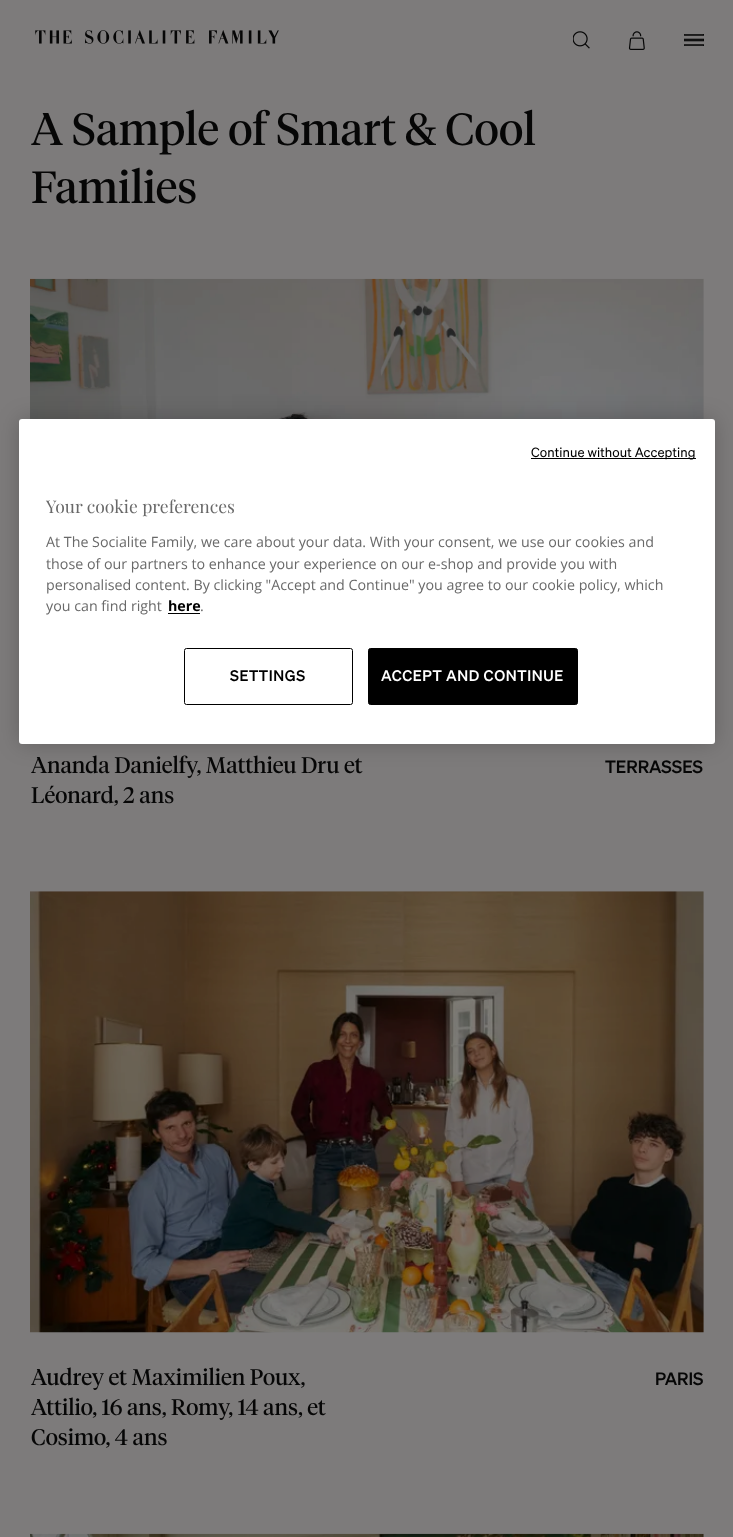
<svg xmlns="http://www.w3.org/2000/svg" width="733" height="1537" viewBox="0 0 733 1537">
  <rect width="100%" height="100%" fill="#7d7b7b"/>
  <image x="35" y="30" width="244" height="14" href="img/1.png"/>
  <image x="573" y="31" width="17" height="18" href="img/2.png"/>
  <image x="628" y="31" width="17" height="19" href="img/3.png"/>
  <image x="684" y="34" width="20" height="12" href="img/4.png"/>
  <image x="30" y="278" width="674" height="141" href="img/5.png"/>
  <image x="30" y="891" width="674" height="442" href="img/6.png"/>
  <image x="30" y="1533" width="674" height="4" href="img/7.png"/>
  <rect x="19" y="419" width="696" height="325" rx="3" fill="#00000033" filter="blur(11px)"/>
  <rect x="19" y="419" width="696" height="325" rx="3" fill="#fff"/>
  <path d="M531 458h165v1H531z" fill="#000"/>
  <path d="M168 613h32v1H168z" fill="#000"/>
  <rect x="184.5" y="648.5" width="168" height="56" rx="2" fill="none" stroke="#000"/>
  <rect x="368.5" y="648.5" width="209" height="56" rx="2" fill="#000" stroke="#000"/>
  <g font-family="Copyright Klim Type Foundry" font-size="45" fill="#060606">
    <text x="31" y="145">A Sample of Smart &amp; Cool</text>
    <text x="31" y="203">Families</text>
  </g>
  <g font-family="Copyright Klim Type Foundry" font-size="22.5" fill="#060606">
    <text x="31" y="773">Ananda Danielfy, Matthieu Dru et</text>
    <text x="31" y="803">Léonard, 2 ans</text>
  </g>
  <text x="605" y="773" font-family="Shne" font-size="17.5" font-weight="500" fill="#060606">TERRASSES</text>
  <g font-family="Copyright Klim Type Foundry" font-size="22.5" fill="#060606">
    <text x="31" y="1385">Audrey et Maximilien Poux,</text>
    <text x="31" y="1415">Attilio, 16 ans, Romy, 14 ans, et</text>
    <text x="31" y="1445">Cosimo, 4 ans</text>
  </g>
  <text x="655" y="1385" font-family="Shne" font-size="17.5" font-weight="500" fill="#060606">PARIS</text>
  <text x="531" y="457" font-family="'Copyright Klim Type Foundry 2'" font-size="13.1" letter-spacing="0.1" fill="#000">Continue without Accepting</text>
  <text x="46" y="513" font-family="Playfair Display" font-size="17.5" fill="#696969">Your cookie preferences</text>
  <g font-family="Open Sans" font-size="14.25" fill="#696969">
    <text x="46" y="547">At The Socialite Family, we care about your data. With your consent, we use our cookies and</text>
    <text x="46" y="569">those of our partners to enhance your experience on our e-shop and provide you with</text>
    <text x="46" y="590">personalised content. By clicking "Accept and Continue" you agree to our cookie policy, which</text>
    <text x="46" y="611">you can find right</text>
  </g>
  <text x="168" y="611" font-family="Open Sans" font-size="14.25" font-weight="bold" fill="#000">here</text>
  <text x="200" y="611" font-family="Open Sans" font-size="14.25" fill="#696969">.</text>
  <text x="230" y="681" font-family="Shne" font-size="15" font-weight="500" letter-spacing="0.6" fill="#000">SETTINGS</text>
  <text x="381" y="681" font-family="Shne" font-size="15" font-weight="500" letter-spacing="0.6" fill="#fff">ACCEPT AND CONTINUE</text>
</svg>
